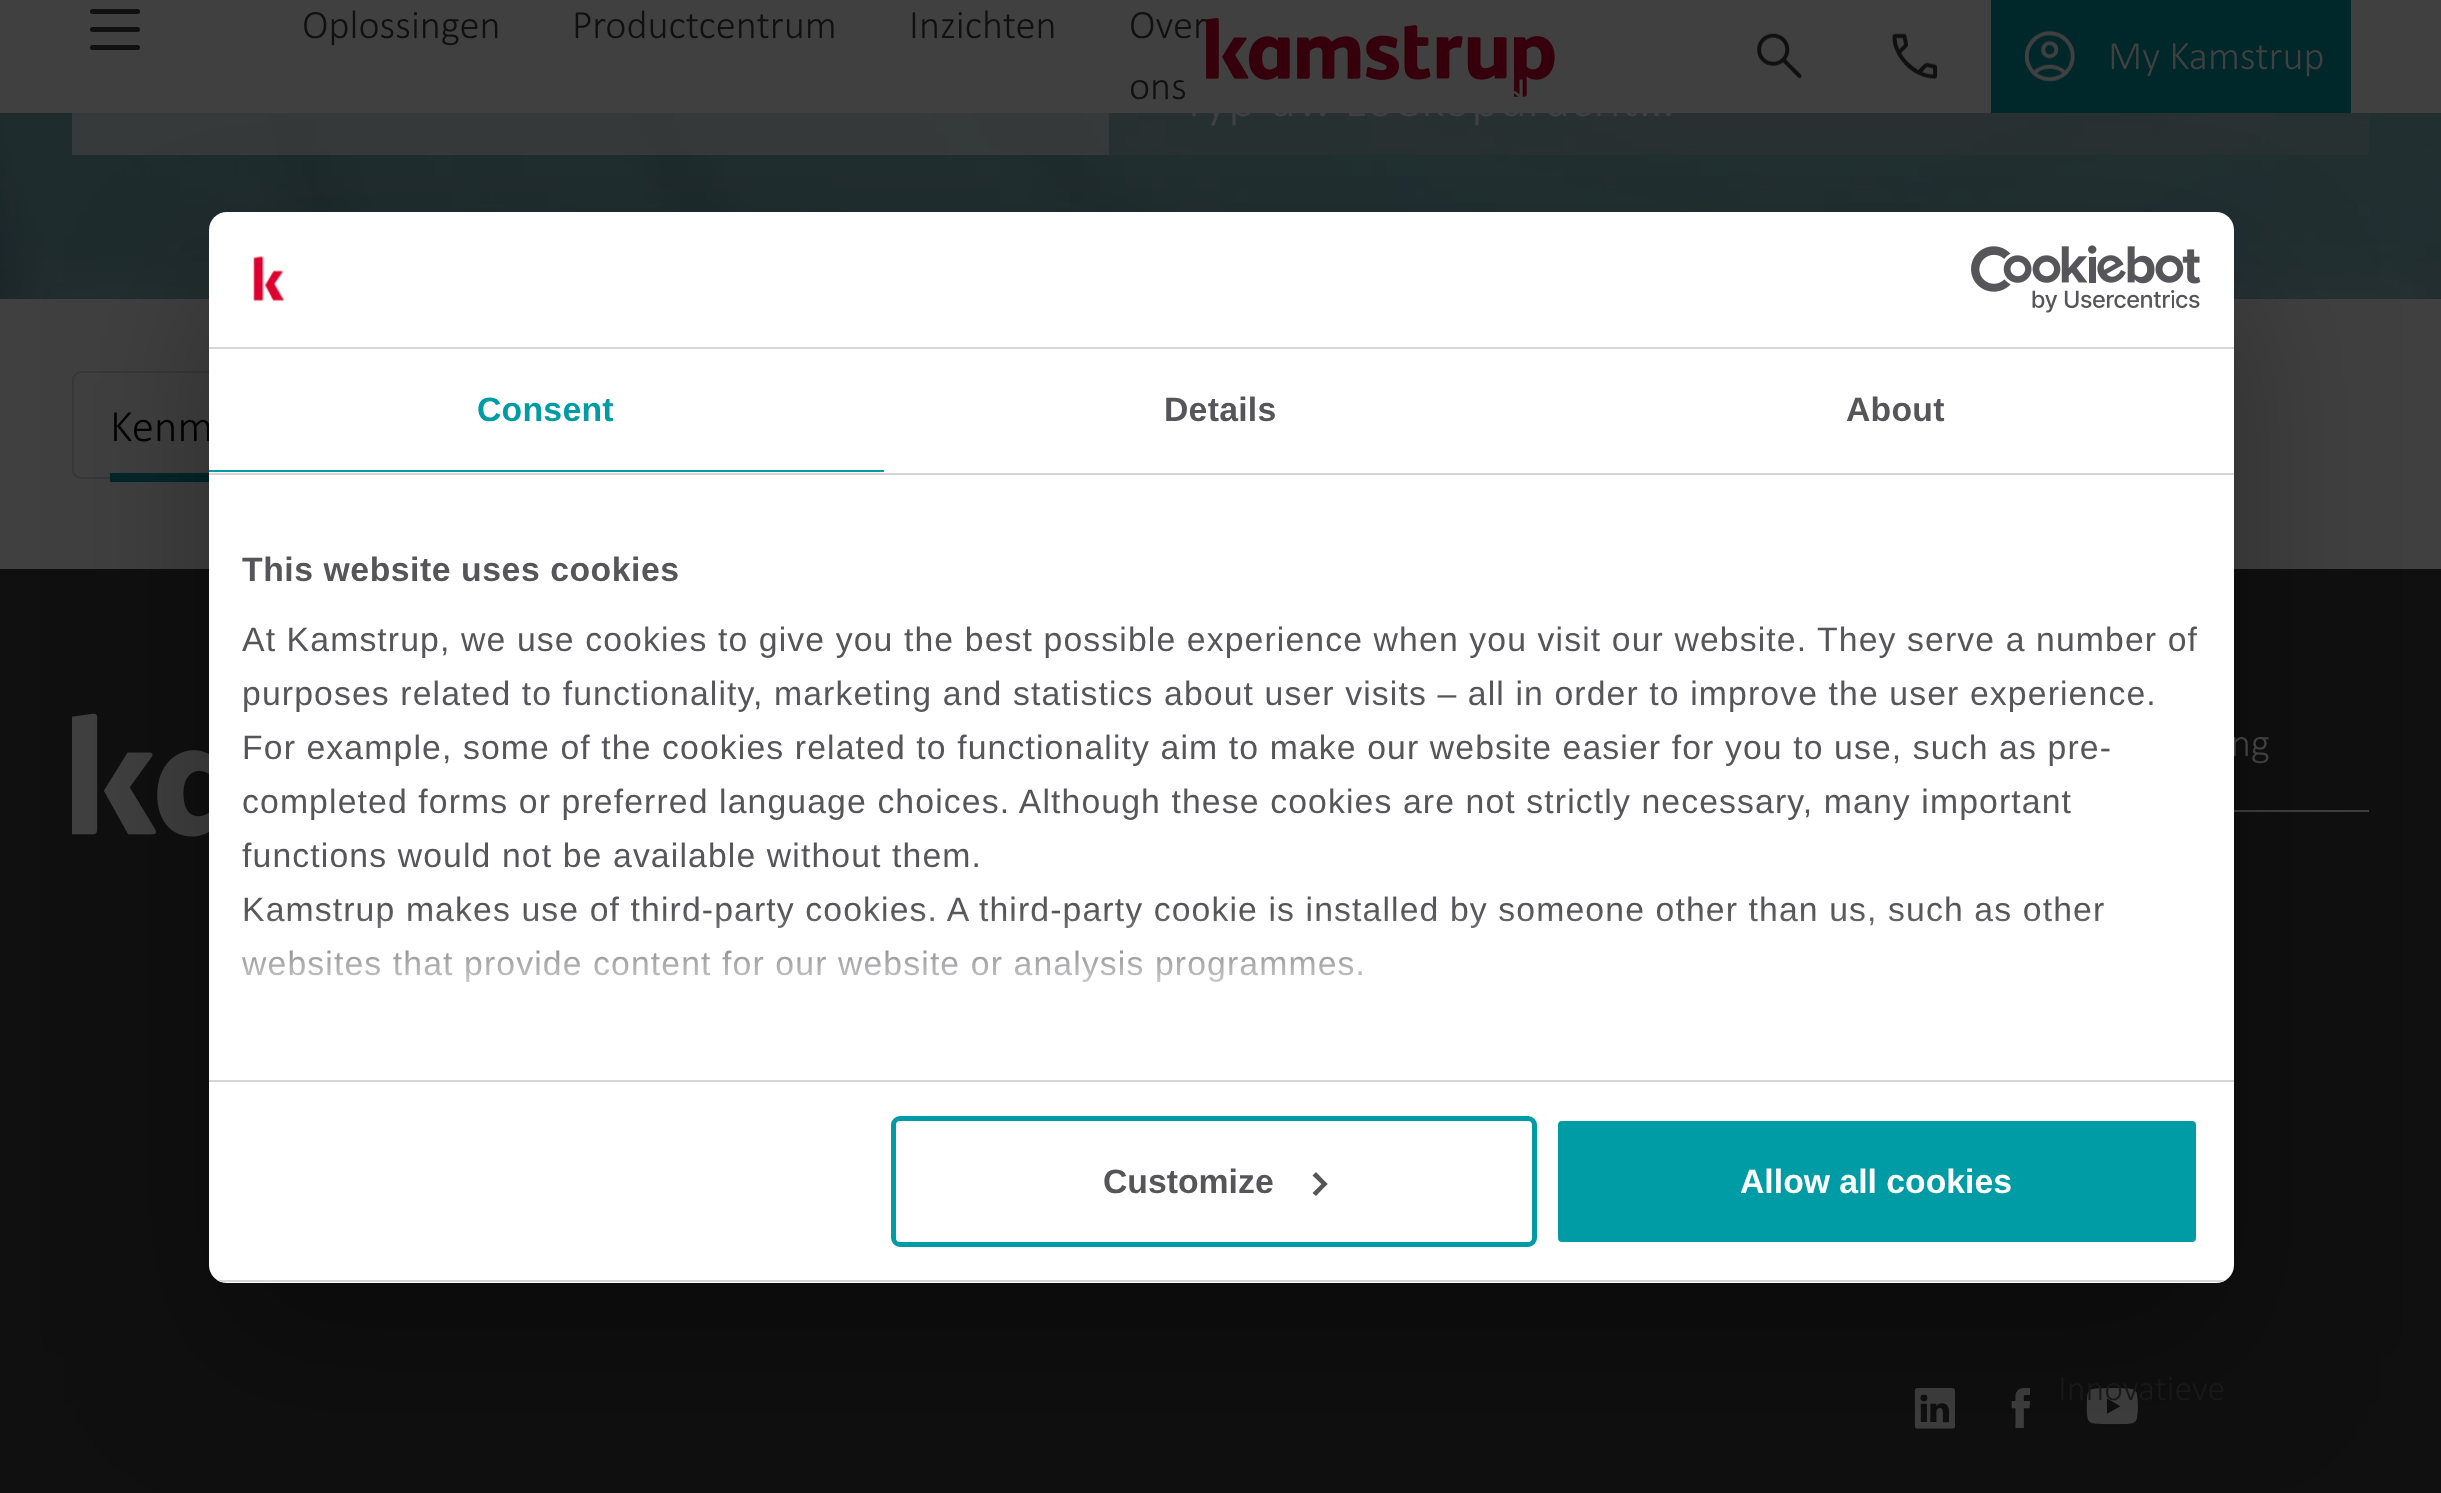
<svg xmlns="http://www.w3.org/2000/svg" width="2441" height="1493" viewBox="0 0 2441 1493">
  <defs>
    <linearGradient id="g1" gradientUnits="userSpaceOnUse" x1="1207" y1="1080" x2="1207" y2="911"><stop offset="0" stop-color="#fff"/><stop offset="0.5" stop-color="#fff" stop-opacity="0.8"/><stop offset="1" stop-color="#fff" stop-opacity="0"/></linearGradient>
    <clipPath id="clip1"><rect x="209" y="212" width="2025" height="1071" rx="18"/></clipPath>
  </defs>
  <rect width="100%" height="100%" fill="#404040"/>
  <image x="0" y="113" width="2441" height="186" href="img/1.png"/>
  <path d="M72 113h1037v42H72z" fill="#404040b3"/>
  <path d="M1109 113h1260v42H1109z" fill="#35353566"/>
  <rect x="73" y="372" width="279" height="106" rx="8" fill="none" stroke="#383838" stroke-width="2"/>
  <path d="M110 473h99v9H110z" fill="#00272a"/>
  <rect x="90" y="9" width="50" height="5" rx="2.5" fill="#101010"/>
  <rect x="90" y="27" width="50" height="5" rx="2.5" fill="#101010"/>
  <rect x="90" y="45" width="50" height="5" rx="2.5" fill="#101010"/>
  <image x="1206" y="18" width="349" height="79" href="img/2.png"/>
  <image x="1757" y="33" width="45" height="46" href="img/3.png"/>
  <image x="1892" y="33" width="46" height="46" href="img/4.png"/>
  <path d="M1991 0h360v113H1991z" fill="#00272a"/>
  <image x="2024" y="30" width="51" height="52" href="img/5.png"/>
  <path d="M0 569h2441v924H0z" fill="#101010"/>
  <image x="72" y="713" width="137" height="124" href="img/6.png"/>
  <path d="M2234 810h135v2H2234z" fill="#404040"/>
  <image x="1914" y="1388" width="41" height="41" href="img/7.png"/>
  <image x="2011" y="1388" width="20" height="41" href="img/8.png"/>
  <image x="2086" y="1388" width="52" height="37" href="img/9.png"/>
  <rect x="209" y="284" width="2025" height="1071" rx="18" fill="#0000004d" filter="blur(76.5px)"/>
  <text x="110" y="441" font-family="Calibri" font-size="45" font-weight="300" fill="#000">Kenm</text>
  <g font-family="Calibri" font-size="40.5" font-weight="300" fill="#101010">
    <text x="302" y="38">Oplossingen</text>
    <text x="572" y="38">Productcentrum</text>
    <text x="909" y="38">Inzichten</text>
    <text x="1129" y="38">Over</text>
    <text x="1129" y="99">ons</text>
  </g>
  <text x="2108" y="69" font-family="Calibri" font-size="40.5" font-weight="300" fill="#404040">My Kamstrup</text>
  <text x="1181" y="116" font-family="Calibri" font-size="54" font-weight="300" fill="#404040">Typ uw zoekopdracht…</text>
  <text x="2058" y="1400" font-family="Calibri" font-size="36" font-weight="300" fill="#191919">Innovatieve</text>
  <text x="2230" y="756" font-family="Calibri" font-size="40.5" font-weight="300" fill="#404040">ng</text>
  <rect x="209" y="212" width="2025" height="1071" rx="18" fill="#fff"/>
  <path d="M209 347h2025v2H209z" fill="#d6d6d6"/>
  <image x="253" y="256" width="32" height="46" href="img/10.png"/>
  <image x="1971" y="245" width="230" height="68" href="img/11.png"/>
  <path d="M209 473h2025v2H209z" fill="#d6d6d6"/>
  <path d="M209 470h675v2H209z" fill="#009ca6"/>
  <text x="477" y="421" font-family="Liberation Sans" font-size="33.75" font-weight="bold" letter-spacing="0.25" fill="#009ca6">Consent</text>
  <g font-family="Liberation Sans" font-size="33.75" font-weight="bold" letter-spacing="0.25" fill="#56565a">
    <text x="1164" y="421">Details</text>
    <text x="1846" y="421">About</text>
  </g>
  <path d="M209 1080h2025v2H209z" fill="#d6d6d6"/>
  <text x="242" y="581" font-family="Liberation Sans" font-size="33.75" font-weight="bold" letter-spacing="0.55" fill="#56565a">This website uses cookies</text>
  <g font-family="Liberation Sans" font-size="33.75" letter-spacing="1.12" fill="#56565a">
    <text x="242" y="651">At Kamstrup, we use cookies to give you the best possible experience when you visit our website. They serve a number of</text>
    <text x="242" y="705">purposes related to functionality, marketing and statistics about user visits – all in order to improve the user experience.</text>
    <text x="242" y="759">For example, some of the cookies related to functionality aim to make our website easier for you to use, such as pre-</text>
    <text x="242" y="813">completed forms or preferred language choices. Although these cookies are not strictly necessary, many important</text>
    <text x="242" y="867">functions would not be available without them.</text>
    <text x="242" y="921">Kamstrup makes use of third-party cookies. A third-party cookie is installed by someone other than us, such as other</text>
    <text x="242" y="975">websites that provide content for our website or analysis programmes.</text>
  </g>
  <path d="M241 913h1858v69H241z" fill="url(#g1)"/>
  <g clip-path="url(#clip1)">
    <path d="M209 1280h2025v2H209z" fill="#d6d6d6"/>
  </g>
  <rect x="893.5" y="1118.5" width="641" height="126" rx="6.5" fill="none" stroke="#009ca6" stroke-width="5"/>
  <text x="1103" y="1193" font-family="Liberation Sans" font-size="33.75" font-weight="bold" fill="#56565a">Customize</text>
  <path d="M1316 1172L1327.5 1184L1324.5 1187L1312.5 1175.5Z" fill="#56565a"/>
  <path d="M1324.5 1181L1327.5 1184L1316 1196L1312.5 1193Z" fill="#56565a"/>
  <rect x="1555.5" y="1118.5" width="643" height="126" rx="6.5" fill="#009ca6" stroke="#fff" stroke-width="5"/>
  <text x="1740" y="1193" font-family="Liberation Sans" font-size="33.75" font-weight="bold" fill="#fff">Allow all cookies</text>
</svg>
